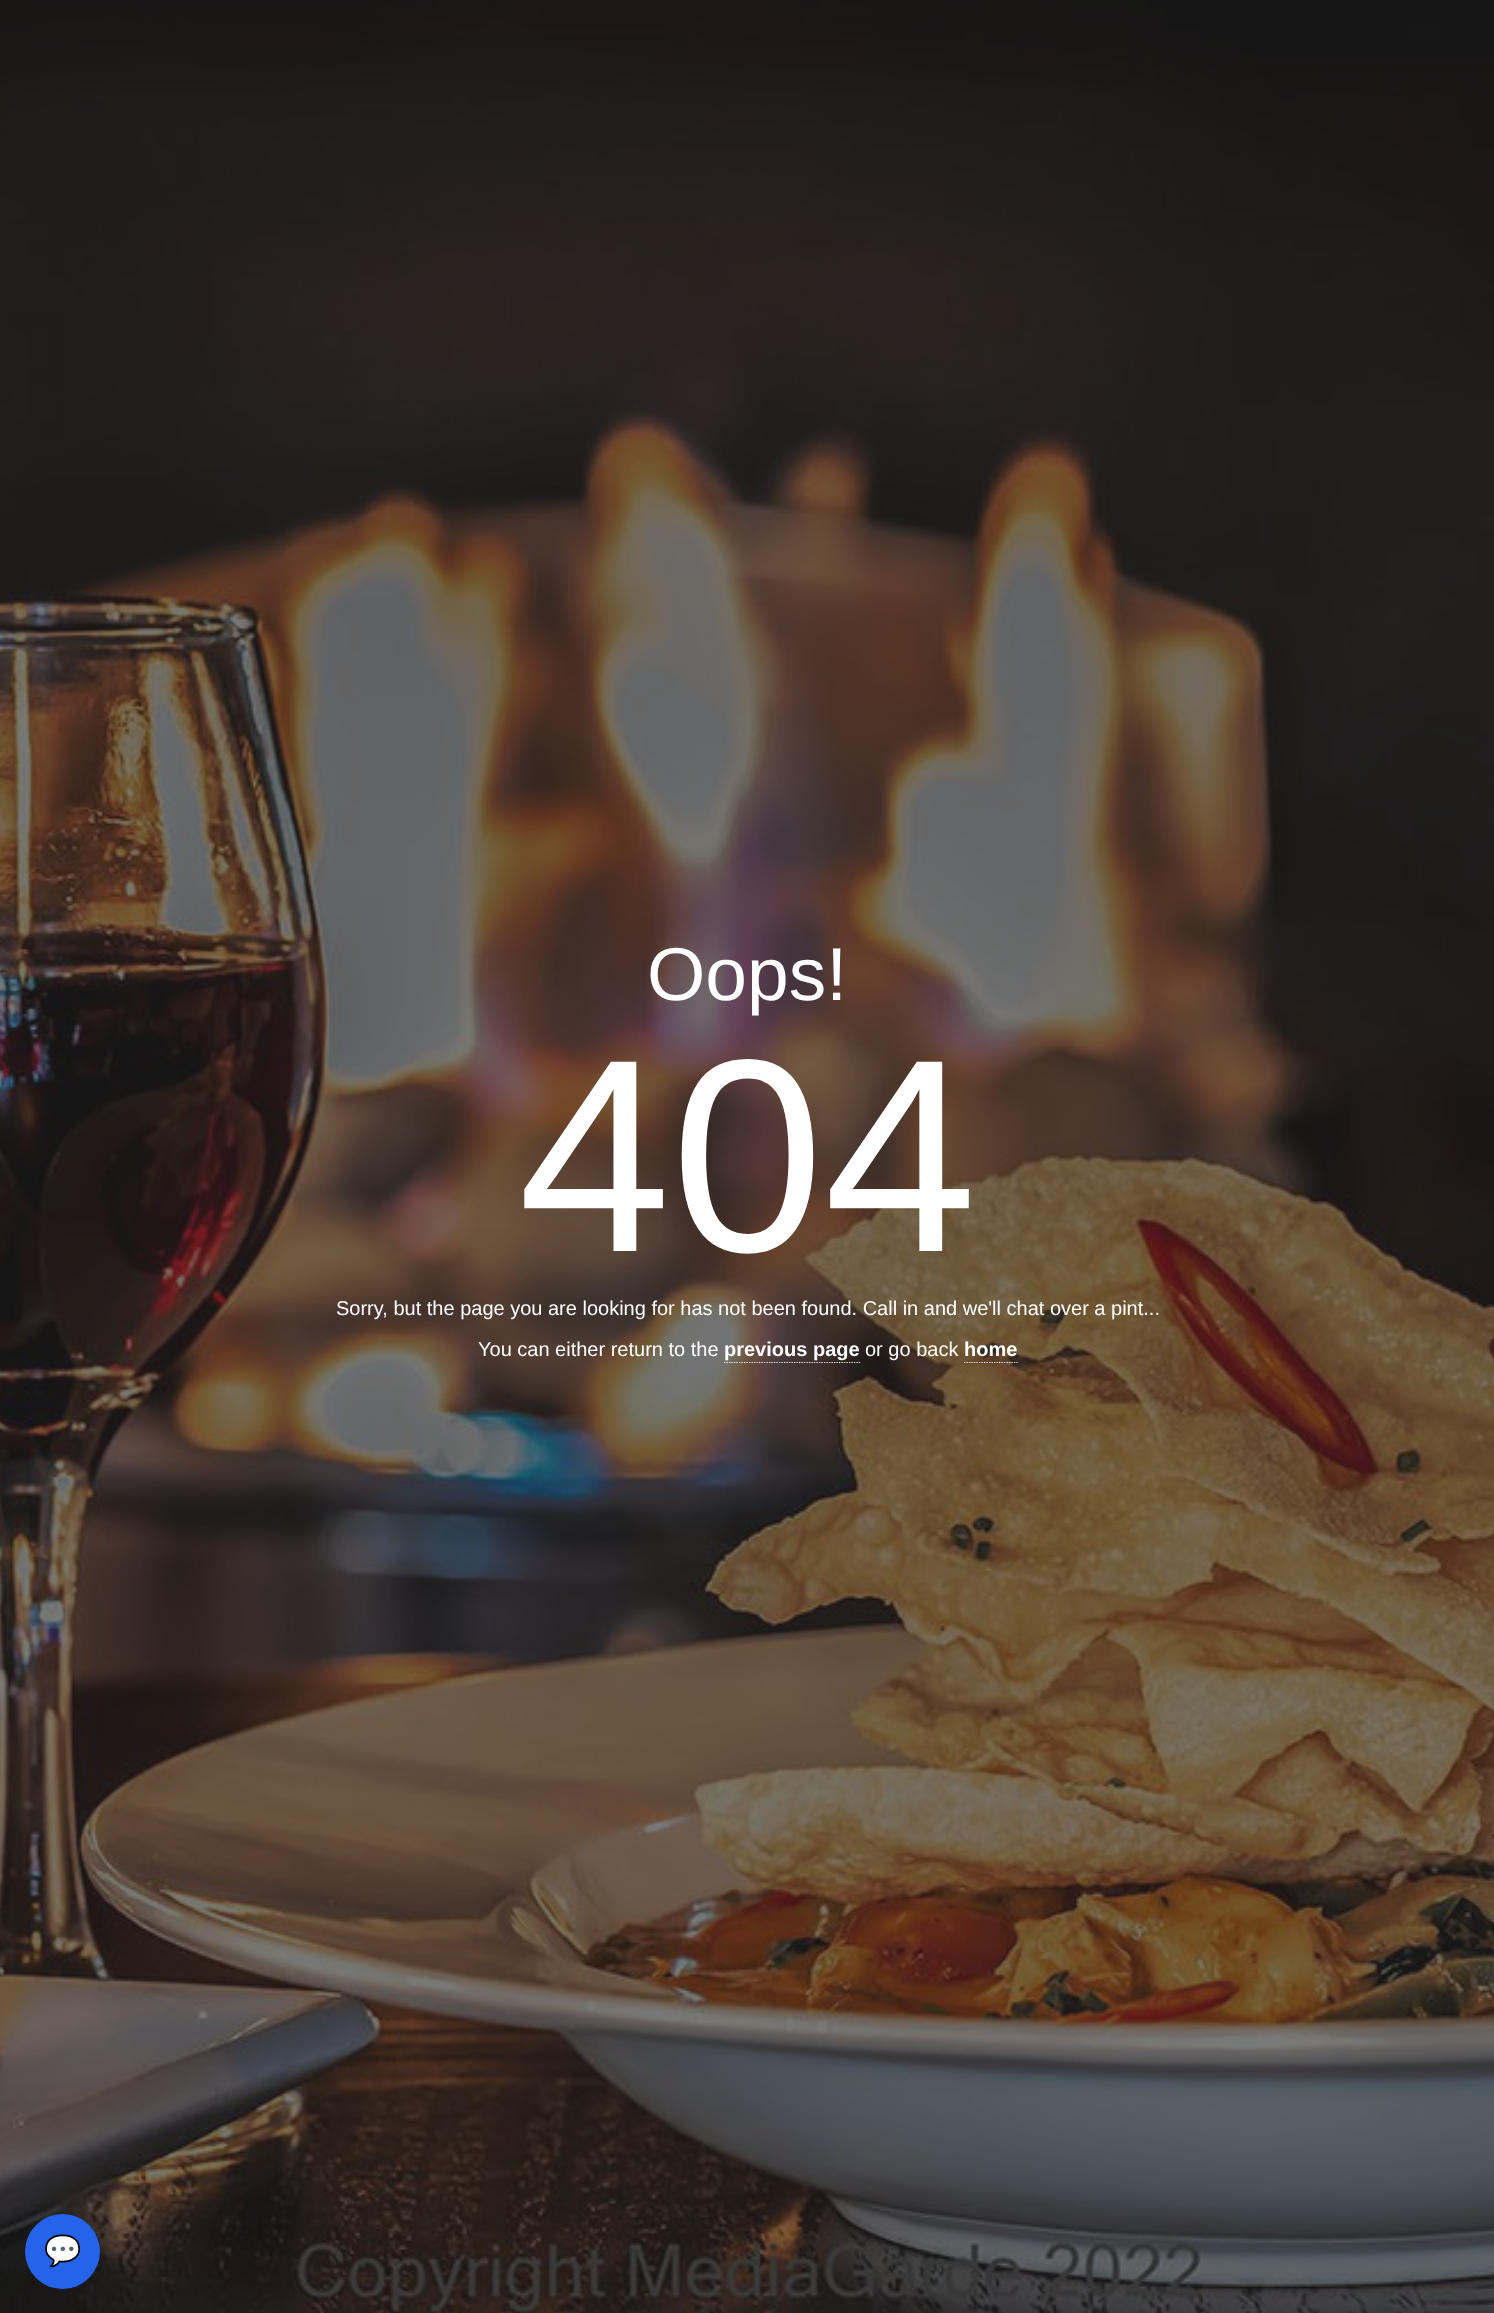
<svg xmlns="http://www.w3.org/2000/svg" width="1494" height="2313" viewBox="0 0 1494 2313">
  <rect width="100%" height="100%" fill="#fff"/>
  <image x="0" y="0" width="1494" height="2313" href="img/1.png"/>
  <path d="M724 1362.5H860" fill="none" stroke="#fff" stroke-width="1.2" stroke-dasharray="1.25 1.25"/>
  <path d="M964 1362.5H1017.5" fill="none" stroke="#fff" stroke-width="1.2" stroke-dasharray="1.25 1.25"/>
  <circle cx="62.5" cy="2251.5" r="37.5" fill="#2563eb"/>
  <text x="647" y="1000" font-family="Liberation Sans" font-size="75" fill="#fff">Oops!</text>
  <text x="518" y="1251" font-family="Liberation Sans" font-size="275" fill="#fff">404</text>
  <g font-family="Liberation Sans" font-size="20" fill="#fff">
    <text x="336" y="1315">Sorry, but the page you are looking for has not been found. Call in and we'll chat over a pint...</text>
    <text x="478" y="1356">You can either return to the</text>
  </g>
  <text x="724" y="1356" font-family="Liberation Sans" font-size="20" font-weight="bold" fill="#fff">previous page</text>
  <text x="865" y="1356" font-family="Liberation Sans" font-size="20" fill="#fff">or go back</text>
  <text x="964" y="1356" font-family="Liberation Sans" font-size="20" font-weight="bold" fill="#fff">home</text>
  <text x="44" y="2261" font-family="Noto Color Emoji" font-size="30" fill="#fff">💬</text>
</svg>
